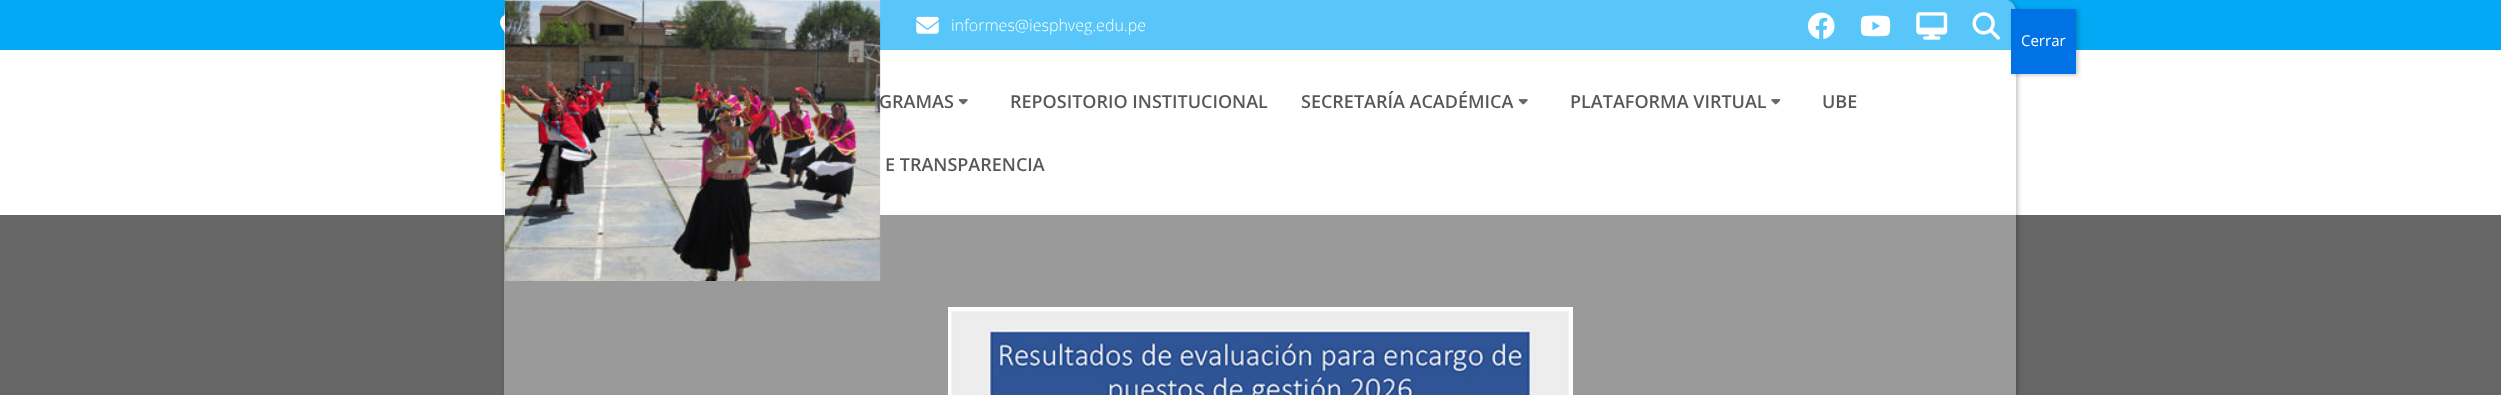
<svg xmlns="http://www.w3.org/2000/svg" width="2519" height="395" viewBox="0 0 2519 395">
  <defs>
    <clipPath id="clip1"><path d="M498 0H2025V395H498ZM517-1H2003C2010-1 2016 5 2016 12V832C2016 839 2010 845 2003 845H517C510 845 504 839 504 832V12C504 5 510-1 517-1Z" clip-rule="evenodd"/></clipPath>
  </defs>
  <rect width="100%" height="100%" fill="#fff"/>
  <path d="M0 0h2501v50H0z" fill="#03a9f4"/>
  <image x="500" y="14" width="5" height="19" href="img/1.png"/>
  <image x="916" y="16" width="23" height="18" href="img/2.png"/>
  <image x="1807" y="12" width="28" height="27" href="img/3.png"/>
  <image x="1860" y="15" width="31" height="22" href="img/4.png"/>
  <image x="1916" y="12" width="32" height="28" href="img/5.png"/>
  <image x="1972" y="12" width="28" height="28" href="img/6.png"/>
  <image x="499" y="88" width="6" height="89" href="img/7.png"/>
  <image x="958" y="99" width="10" height="6" href="img/8.png"/>
  <image x="1518" y="99" width="10" height="6" href="img/8.png"/>
  <image x="1771" y="99" width="10" height="6" href="img/9.png"/>
  <path d="M0 215h2501v180H0z" fill="#666"/>
  <g clip-path="url(#clip1)">
    <rect x="505" width="1513" height="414" rx="13" fill="#0202023b" filter="blur(2px)"/>
  </g>
  <text x="951" y="31" font-family="Open Sans" font-size="16" font-weight="300" fill="#fff">informes@iesphveg.edu.pe</text>
  <g font-family="Open Sans" font-size="18" font-weight="600" fill="#000">
    <text x="879" y="108">GRAMAS</text>
    <text x="1010" y="108">REPOSITORIO INSTITUCIONAL</text>
    <text x="1301" y="108">SECRETARÍA ACADÉMICA</text>
    <text x="1570" y="108">PLATAFORMA VIRTUAL</text>
    <text x="1822" y="108">UBE</text>
    <text x="885" y="171">E TRANSPARENCIA</text>
  </g>
  <rect x="504" y="-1" width="1512" height="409" rx="13" fill="#ffffff57"/>
  <image x="505" y="0" width="376" height="281" href="img/10.png"/>
  <image x="948" y="307" width="625" height="88" href="img/11.png"/>
  <path d="M2013 10h65v65H2013z" fill="#0202023b" filter="blur(2px)"/>
  <path d="M2011 9h65v65H2011z" fill="#0072e5"/>
  <text x="2021" y="46" font-family="Open Sans" font-size="15" fill="#fff">Cerrar</text>
</svg>
